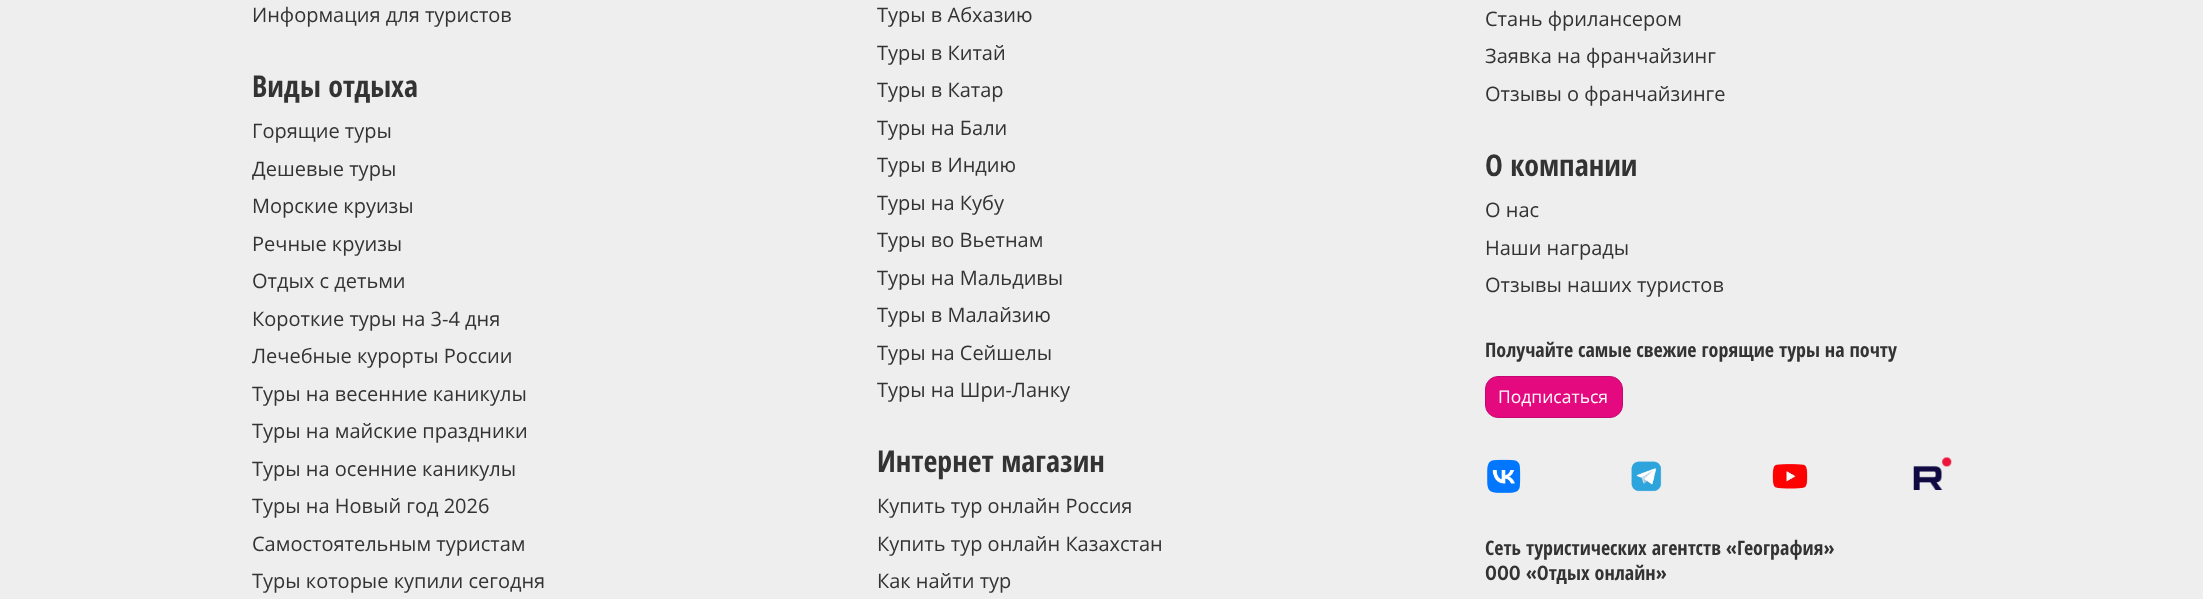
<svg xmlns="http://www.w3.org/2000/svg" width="2203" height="599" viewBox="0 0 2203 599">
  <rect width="100%" height="100%" fill="#eee"/>
  <rect x="1485.5" y="376.5" width="137" height="41" rx="12.5" fill="#e5097f" stroke="#c5086f"/>
  <image x="1487" y="459" width="34" height="34" href="img/1.png"/>
  <image x="1631" y="461" width="31" height="31" href="img/2.png"/>
  <image x="1772" y="464" width="36" height="25" href="img/3.png"/>
  <image x="1913" y="457" width="39" height="33" href="img/4.png"/>
  <text x="252" y="22" font-family="Open Sans" font-size="20" fill="#333">Информация для туристов</text>
  <text x="252" y="97" font-family="Open Sans Condensed" font-size="30" font-weight="bold" fill="#333">Виды отдыха</text>
  <g font-family="Open Sans" font-size="20" fill="#333">
    <text x="252" y="138">Горящие туры</text>
    <text x="252" y="176">Дешевые туры</text>
    <text x="252" y="213">Морские круизы</text>
    <text x="252" y="251">Речные круизы</text>
    <text x="252" y="288">Отдых с детьми</text>
    <text x="252" y="326">Короткие туры на 3-4 дня</text>
    <text x="252" y="363">Лечебные курорты России</text>
    <text x="252" y="401">Туры на весенние каникулы</text>
    <text x="252" y="438">Туры на майские праздники</text>
    <text x="252" y="476">Туры на осенние каникулы</text>
    <text x="252" y="513">Туры на Новый год 2026</text>
    <text x="252" y="551">Самостоятельным туристам</text>
    <text x="252" y="588">Туры которые купили сегодня</text>
    <text x="877" y="22">Туры в Абхазию</text>
    <text x="877" y="60">Туры в Китай</text>
    <text x="877" y="97">Туры в Катар</text>
    <text x="877" y="135">Туры на Бали</text>
    <text x="877" y="172">Туры в Индию</text>
    <text x="877" y="210">Туры на Кубу</text>
    <text x="877" y="247">Туры во Вьетнам</text>
    <text x="877" y="285">Туры на Мальдивы</text>
    <text x="877" y="322">Туры в Малайзию</text>
    <text x="877" y="360">Туры на Сейшелы</text>
    <text x="877" y="397">Туры на Шри-Ланку</text>
  </g>
  <text x="877" y="472" font-family="Open Sans Condensed" font-size="30" font-weight="bold" fill="#333">Интернет магазин</text>
  <g font-family="Open Sans" font-size="20" fill="#333">
    <text x="877" y="513">Купить тур онлайн Россия</text>
    <text x="877" y="551">Купить тур онлайн Казахстан</text>
    <text x="877" y="588">Как найти тур</text>
    <text x="1485" y="26">Стань фрилансером</text>
    <text x="1485" y="63">Заявка на франчайзинг</text>
    <text x="1485" y="101">Отзывы о франчайзинге</text>
  </g>
  <text x="1485" y="176" font-family="Open Sans Condensed" font-size="30" font-weight="bold" fill="#333">О компании</text>
  <g font-family="Open Sans" font-size="20" fill="#333">
    <text x="1485" y="217">О нас</text>
    <text x="1485" y="255">Наши награды</text>
    <text x="1485" y="292">Отзывы наших туристов</text>
  </g>
  <text x="1485" y="357" font-family="Open Sans Condensed" font-size="20" font-weight="bold" fill="#333">Получайте самые свежие горящие туры на почту</text>
  <text x="1498" y="403" font-family="Open Sans" font-size="17.5" fill="#fff">Подписаться</text>
  <g font-family="Open Sans Condensed" font-size="20" font-weight="bold" fill="#333">
    <text x="1485" y="555">Сеть туристических агентств «География»</text>
    <text x="1485" y="580">ООО «Отдых онлайн»</text>
  </g>
</svg>
